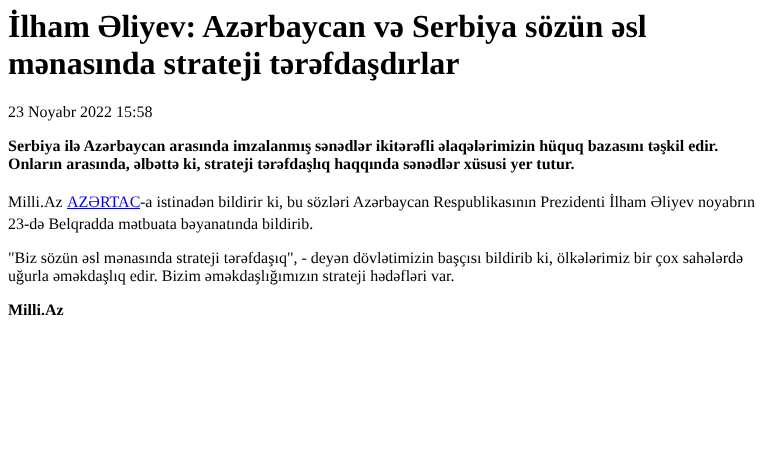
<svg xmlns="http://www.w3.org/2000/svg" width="780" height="463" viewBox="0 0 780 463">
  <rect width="100%" height="100%" fill="#fff"/>
  <path d="M67 208h73v1H67z" fill="#00e"/>
  <g font-family="Liberation Serif" font-size="32" font-weight="bold" fill="#000">
    <text x="8" y="37">İlham Əliyev: Azərbaycan və Serbiya sözün əsl</text>
    <text x="8" y="74">mənasında strateji tərəfdaşdırlar</text>
  </g>
  <text x="8" y="117" font-family="Liberation Serif" font-size="16" fill="#000">23 Noyabr 2022 15:58</text>
  <g font-family="Liberation Serif" font-size="16" font-weight="bold" fill="#000">
    <text x="8" y="151">Serbiya ilə Azərbaycan arasında imzalanmış sənədlər ikitərəfli əlaqələrimizin hüquq bazasını təşkil edir.</text>
    <text x="8" y="169">Onların arasında, əlbəttə ki, strateji tərəfdaşlıq haqqında sənədlər xüsusi yer tutur.</text>
  </g>
  <text x="8" y="207" font-family="Liberation Serif" font-size="16" fill="#000">Milli.Az</text>
  <text x="67" y="207" font-family="Liberation Serif" font-size="16" fill="#00e">AZƏRTAC</text>
  <g font-family="Liberation Serif" font-size="16" fill="#000">
    <text x="140" y="207">-a istinadən bildirir ki, bu sözləri Azərbaycan Respublikasının Prezidenti İlham Əliyev noyabrın</text>
    <text x="8" y="229">23-də Belqradda mətbuata bəyanatında bildirib.</text>
    <text x="8" y="263">"Biz sözün əsl mənasında strateji tərəfdaşıq", - deyən dövlətimizin başçısı bildirib ki, ölkələrimiz bir çox sahələrdə</text>
    <text x="8" y="281">uğurla əməkdaşlıq edir. Bizim əməkdaşlığımızın strateji hədəfləri var.</text>
  </g>
  <text x="8" y="315" font-family="Liberation Serif" font-size="16" font-weight="bold" fill="#000">Milli.Az</text>
</svg>
